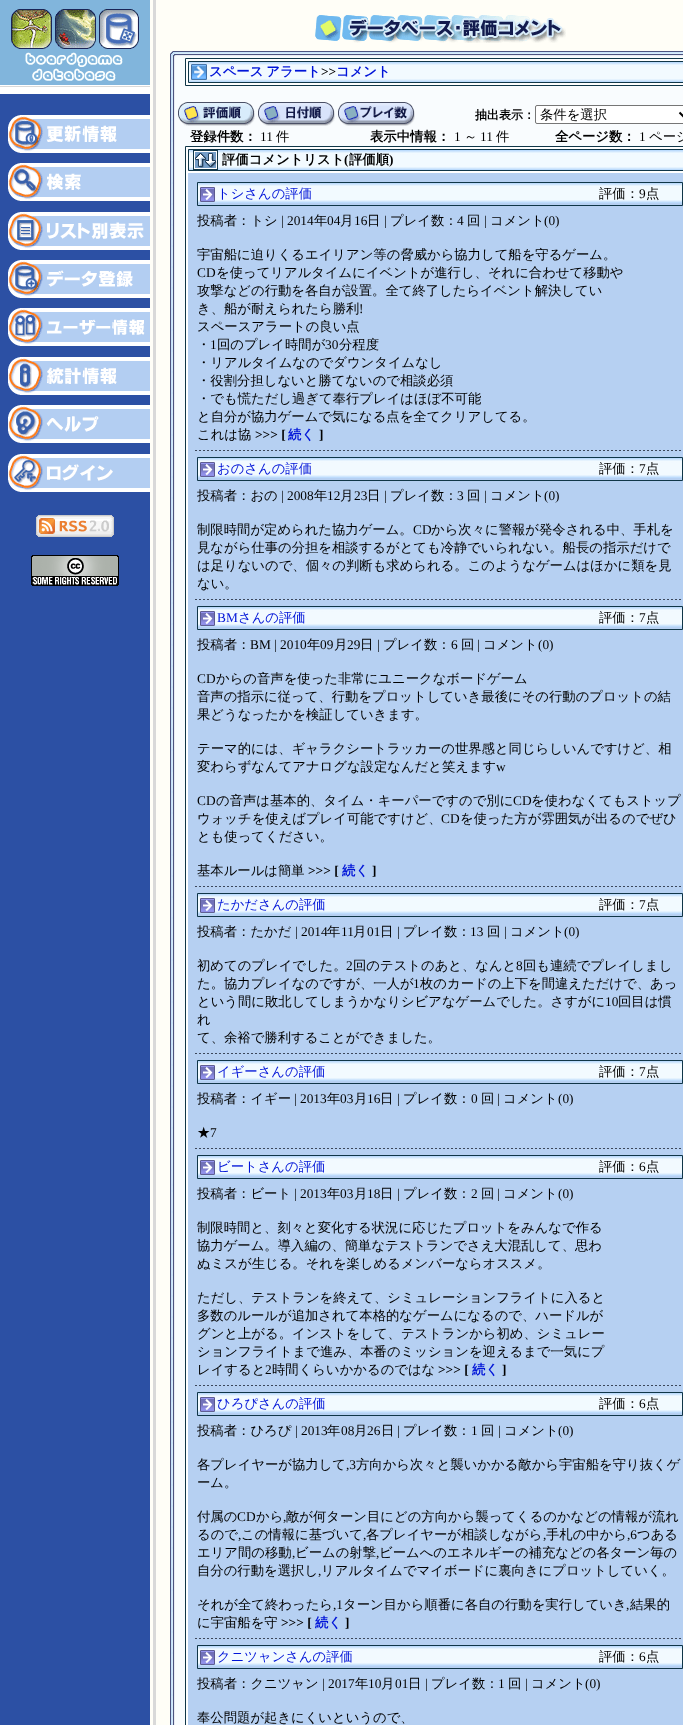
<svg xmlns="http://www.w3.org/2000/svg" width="683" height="1725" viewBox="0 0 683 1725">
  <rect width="100%" height="100%" fill="#fffef7"/>
  <path d="M0 94h150v1631H0z" fill="#2c50a4"/>
  <image x="0" y="0" width="150" height="94" href="img/1.png"/>
  <image x="8" y="115" width="142" height="38" href="img/2.png"/>
  <image x="8" y="163" width="142" height="38" href="img/3.png"/>
  <image x="8" y="212" width="142" height="38" href="img/4.png"/>
  <image x="8" y="260" width="142" height="38" href="img/5.png"/>
  <image x="8" y="308" width="142" height="38" href="img/6.png"/>
  <image x="8" y="357" width="142" height="38" href="img/7.png"/>
  <image x="8" y="405" width="142" height="38" href="img/8.png"/>
  <image x="8" y="454" width="142" height="38" href="img/9.png"/>
  <image x="36" y="515" width="78" height="22" href="img/10.png"/>
  <image x="31" y="555" width="88" height="31" href="img/11.png"/>
  <path d="M153 0h3v1725H153z" fill="#d9d9d9"/>
  <image x="315" y="15" width="251" height="28" href="img/12.png"/>
  <image x="170" y="51" width="7" height="7" href="img/13.png"/>
  <image x="177" y="51" width="506" height="7" href="img/14.png"/>
  <image x="170" y="58" width="7" height="1667" href="img/15.png"/>
  <image x="172" y="1169" width="1" height="17" href="img/16.png"/>
  <path d="M177 58h506v1667H177z" fill="#f9fcfe"/>
  <path d="M185.5 58.5h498v27H185.5z" fill="#fff" stroke="#103648"/>
  <image x="189" y="62" width="494" height="20" href="img/17.png"/>
  <path d="M188.5 61.5h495v21H188.5z" fill="none" stroke="#103648"/>
  <image x="191" y="64" width="16" height="16" href="img/18.png"/>
  <image x="178" y="102" width="77" height="24" href="img/19.png"/>
  <image x="258" y="102" width="77" height="24" href="img/20.png"/>
  <image x="338" y="102" width="77" height="24" href="img/21.png"/>
  <rect x="535.5" y="105.5" width="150" height="18" rx="1.5" fill="#fff" stroke="#767676"/>
  <path d="M679.5 112.5L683.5 116.5L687.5 112.5" fill="none" stroke="#000" stroke-width="2"/>
  <path d="M185.5 146.5h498v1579H185.5z" fill="#fff" stroke="#103648"/>
  <image x="189" y="150" width="494" height="20" href="img/17.png"/>
  <path d="M188.5 149.5h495v21H188.5z" fill="none" stroke="#103648"/>
  <image x="193" y="150" width="25" height="20" href="img/22.png"/>
  <path d="M188 173h495v1552H188z" fill="#b6d0f2"/>
  <image x="198" y="183" width="484" height="20" href="img/23.png"/>
  <path d="M197.5 182.5h485v23H197.5z" fill="none" stroke="#103648"/>
  <image x="200" y="187" width="15" height="15" href="img/24.png"/>
  <image x="195" y="450" width="486" height="1" href="img/25.png"/>
  <image x="198" y="458" width="484" height="20" href="img/23.png"/>
  <path d="M197.5 457.5h485v23H197.5z" fill="none" stroke="#103648"/>
  <image x="200" y="462" width="15" height="15" href="img/24.png"/>
  <image x="195" y="599" width="486" height="1" href="img/25.png"/>
  <image x="198" y="607" width="484" height="20" href="img/23.png"/>
  <path d="M197.5 606.5h485v23H197.5z" fill="none" stroke="#103648"/>
  <image x="200" y="611" width="15" height="15" href="img/24.png"/>
  <image x="195" y="886" width="486" height="1" href="img/25.png"/>
  <image x="198" y="894" width="484" height="20" href="img/23.png"/>
  <path d="M197.5 893.5h485v23H197.5z" fill="none" stroke="#103648"/>
  <image x="200" y="898" width="15" height="15" href="img/24.png"/>
  <image x="195" y="1053" width="486" height="1" href="img/25.png"/>
  <image x="198" y="1061" width="484" height="20" href="img/23.png"/>
  <path d="M197.5 1060.5h485v23H197.5z" fill="none" stroke="#103648"/>
  <image x="200" y="1065" width="15" height="15" href="img/24.png"/>
  <image x="195" y="1148" width="486" height="1" href="img/25.png"/>
  <image x="198" y="1156" width="484" height="20" href="img/23.png"/>
  <path d="M197.5 1155.5h485v23H197.5z" fill="none" stroke="#103648"/>
  <image x="200" y="1160" width="15" height="15" href="img/24.png"/>
  <image x="195" y="1385" width="486" height="1" href="img/25.png"/>
  <image x="198" y="1393" width="484" height="20" href="img/23.png"/>
  <path d="M197.5 1392.5h485v23H197.5z" fill="none" stroke="#103648"/>
  <image x="200" y="1397" width="15" height="15" href="img/24.png"/>
  <image x="195" y="1638" width="486" height="1" href="img/25.png"/>
  <image x="198" y="1646" width="484" height="20" href="img/23.png"/>
  <path d="M197.5 1645.5h485v23H197.5z" fill="none" stroke="#103648"/>
  <image x="200" y="1650" width="15" height="15" href="img/24.png"/>
  <text x="209" y="76" word-spacing="-1" font-family="WenQuanYi Zen Hei" font-size="13.35" font-weight="bold" fill="#0014d8">スペース アラート</text>
  <text x="321" y="76" font-family="Liberation Serif" font-size="13.35" font-weight="bold" fill="#000">&gt;&gt;</text>
  <text x="336" y="76" font-family="WenQuanYi Zen Hei" font-size="13.35" font-weight="bold" fill="#0014d8">コメント</text>
  <text x="475" y="119" font-family="WenQuanYi Zen Hei" font-size="12" font-weight="bold" fill="#000">抽出表示：</text>
  <text x="540" y="119" font-family="WenQuanYi Zen Hei" font-size="13.35" font-weight="500" fill="#000">条件を選択</text>
  <text x="190" y="141" font-family="WenQuanYi Zen Hei" font-size="13.35" font-weight="bold" fill="#000">登録件数：</text>
  <text x="260" y="141" font-family="Liberation Serif" font-size="13.35" fill="#000">11</text>
  <text x="276" y="141" font-family="WenQuanYi Zen Hei" font-size="13.35" font-weight="500" fill="#000">件</text>
  <text x="370" y="141" font-family="WenQuanYi Zen Hei" font-size="13.35" font-weight="bold" fill="#000">表示中情報：</text>
  <text x="454" y="141" font-family="Liberation Serif" font-size="13.35" fill="#000">1</text>
  <text x="464" y="141" font-family="WenQuanYi Zen Hei" font-size="13.35" font-weight="500" fill="#000">～</text>
  <text x="480" y="141" font-family="Liberation Serif" font-size="13.35" fill="#000">11</text>
  <text x="496" y="141" font-family="WenQuanYi Zen Hei" font-size="13.35" font-weight="500" fill="#000">件</text>
  <text x="555" y="141" font-family="WenQuanYi Zen Hei" font-size="13.35" font-weight="bold" fill="#000">全ページ数：</text>
  <text x="639" y="141" font-family="Liberation Serif" font-size="13.35" fill="#000">1</text>
  <text x="649" y="141" font-family="WenQuanYi Zen Hei" font-size="13.35" font-weight="500" fill="#000">ページ</text>
  <text x="222" y="164" font-family="WenQuanYi Zen Hei" font-size="13.35" font-weight="bold" fill="#000">評価コメントリスト</text>
  <text x="344" y="164" font-family="Liberation Serif" font-size="13.35" font-weight="bold" fill="#000">(</text>
  <text x="349" y="164" font-family="WenQuanYi Zen Hei" font-size="13.35" font-weight="bold" fill="#000">評価順</text>
  <text x="389" y="164" font-family="Liberation Serif" font-size="13.35" font-weight="bold" fill="#000">)</text>
  <text x="217" y="198" font-family="WenQuanYi Zen Hei" font-size="13.35" font-weight="500" fill="#0014d8">トシさんの評価</text>
  <text x="599" y="198" font-family="WenQuanYi Zen Hei" font-size="13.35" font-weight="500" fill="#000">評価：</text>
  <text x="639" y="198" font-family="Liberation Serif" font-size="13.35" fill="#000">9</text>
  <g font-family="WenQuanYi Zen Hei" font-size="13.35" font-weight="500" fill="#000">
    <text x="646" y="198">点</text>
    <text x="197" y="225">投稿者：トシ</text>
  </g>
  <text x="281" y="225" font-family="Liberation Serif" font-size="13.35" fill="#000">| 2014</text>
  <text x="314" y="225" font-family="WenQuanYi Zen Hei" font-size="13.35" font-weight="500" fill="#000">年</text>
  <text x="327" y="225" font-family="Liberation Serif" font-size="13.35" fill="#000">04</text>
  <text x="340" y="225" font-family="WenQuanYi Zen Hei" font-size="13.35" font-weight="500" fill="#000">月</text>
  <text x="354" y="225" font-family="Liberation Serif" font-size="13.35" fill="#000">16</text>
  <text x="367" y="225" font-family="WenQuanYi Zen Hei" font-size="13.35" font-weight="500" fill="#000">日</text>
  <text x="384" y="225" font-family="Liberation Serif" font-size="13.35" fill="#000">|</text>
  <text x="390" y="225" font-family="WenQuanYi Zen Hei" font-size="13.35" font-weight="500" fill="#000">プレイ数：</text>
  <text x="457" y="225" font-family="Liberation Serif" font-size="13.35" fill="#000">4</text>
  <text x="467" y="225" font-family="WenQuanYi Zen Hei" font-size="13.35" font-weight="500" fill="#000">回</text>
  <text x="484" y="225" font-family="Liberation Serif" font-size="13.35" fill="#000">|</text>
  <text x="490" y="225" font-family="WenQuanYi Zen Hei" font-size="13.35" font-weight="500" fill="#000">コメント</text>
  <text x="544" y="225" font-family="Liberation Serif" font-size="13.35" fill="#000">(0)</text>
  <text x="197" y="259" font-family="WenQuanYi Zen Hei" font-size="13.35" font-weight="500" fill="#000">宇宙船に迫りくるエイリアン等の脅威から協力して船を守るゲーム。</text>
  <text x="197" y="277" font-family="Liberation Serif" font-size="13.35" fill="#000">CD</text>
  <g font-family="WenQuanYi Zen Hei" font-size="13.35" font-weight="500" fill="#000">
    <text x="216" y="277">を使ってリアルタイムにイベントが進行し、それに合わせて移動や</text>
    <text x="197" y="295">攻撃などの行動を各自が設置。全て終了したらイベント解決してい</text>
    <text x="197" y="313">き、船が耐えられたら勝利</text>
  </g>
  <text x="359" y="313" font-family="Liberation Serif" font-size="13.35" fill="#000">!</text>
  <g font-family="WenQuanYi Zen Hei" font-size="13.35" font-weight="500" fill="#000">
    <text x="197" y="331">スペースアラートの良い点</text>
    <text x="197" y="349">・</text>
  </g>
  <text x="210" y="349" font-family="Liberation Serif" font-size="13.35" fill="#000">1</text>
  <text x="217" y="349" font-family="WenQuanYi Zen Hei" font-size="13.35" font-weight="500" fill="#000">回のプレイ時間が</text>
  <text x="325" y="349" font-family="Liberation Serif" font-size="13.35" fill="#000">30</text>
  <g font-family="WenQuanYi Zen Hei" font-size="13.35" font-weight="500" fill="#000">
    <text x="339" y="349">分程度</text>
    <text x="197" y="367">・リアルタイムなのでダウンタイムなし</text>
    <text x="197" y="385">・役割分担しないと勝てないので相談必須</text>
    <text x="197" y="403">・でも慌ただし過ぎて奉行プレイはほぼ不可能</text>
    <text x="197" y="421">と自分が協力ゲームで気になる点を全てクリアしてる。</text>
    <text x="197" y="439">これは協</text>
  </g>
  <text x="255" y="439" font-family="Liberation Serif" font-size="13.35" font-weight="bold" fill="#000">&gt;&gt;&gt; [</text>
  <text x="288" y="439" font-family="WenQuanYi Zen Hei" font-size="13.35" font-weight="bold" fill="#0014d8">続く</text>
  <text x="319" y="439" font-family="Liberation Serif" font-size="13.35" font-weight="bold" fill="#000">]</text>
  <text x="217" y="473" font-family="WenQuanYi Zen Hei" font-size="13.35" font-weight="500" fill="#0014d8">おのさんの評価</text>
  <text x="599" y="473" font-family="WenQuanYi Zen Hei" font-size="13.35" font-weight="500" fill="#000">評価：</text>
  <text x="639" y="473" font-family="Liberation Serif" font-size="13.35" fill="#000">7</text>
  <g font-family="WenQuanYi Zen Hei" font-size="13.35" font-weight="500" fill="#000">
    <text x="646" y="473">点</text>
    <text x="197" y="500">投稿者：おの</text>
  </g>
  <text x="281" y="500" font-family="Liberation Serif" font-size="13.35" fill="#000">| 2008</text>
  <text x="314" y="500" font-family="WenQuanYi Zen Hei" font-size="13.35" font-weight="500" fill="#000">年</text>
  <text x="327" y="500" font-family="Liberation Serif" font-size="13.35" fill="#000">12</text>
  <text x="340" y="500" font-family="WenQuanYi Zen Hei" font-size="13.35" font-weight="500" fill="#000">月</text>
  <text x="354" y="500" font-family="Liberation Serif" font-size="13.35" fill="#000">23</text>
  <text x="367" y="500" font-family="WenQuanYi Zen Hei" font-size="13.35" font-weight="500" fill="#000">日</text>
  <text x="384" y="500" font-family="Liberation Serif" font-size="13.35" fill="#000">|</text>
  <text x="390" y="500" font-family="WenQuanYi Zen Hei" font-size="13.35" font-weight="500" fill="#000">プレイ数：</text>
  <text x="457" y="500" font-family="Liberation Serif" font-size="13.35" fill="#000">3</text>
  <text x="467" y="500" font-family="WenQuanYi Zen Hei" font-size="13.35" font-weight="500" fill="#000">回</text>
  <text x="484" y="500" font-family="Liberation Serif" font-size="13.35" fill="#000">|</text>
  <text x="490" y="500" font-family="WenQuanYi Zen Hei" font-size="13.35" font-weight="500" fill="#000">コメント</text>
  <text x="544" y="500" font-family="Liberation Serif" font-size="13.35" fill="#000">(0)</text>
  <text x="197" y="534" font-family="WenQuanYi Zen Hei" font-size="13.35" font-weight="500" fill="#000">制限時間が定められた協力ゲーム。</text>
  <text x="413" y="534" font-family="Liberation Serif" font-size="13.35" fill="#000">CD</text>
  <g font-family="WenQuanYi Zen Hei" font-size="13.35" font-weight="500" fill="#000">
    <text x="431" y="534">から次々に警報が発令される中、手札を</text>
    <text x="197" y="552">見ながら仕事の分担を相談するがとても冷静でいられない。船長の指示だけで</text>
    <text x="197" y="570">は足りないので、個々の判断も求められる。このようなゲームはほかに類を見</text>
    <text x="197" y="588">ない。</text>
  </g>
  <text x="217" y="622" font-family="Liberation Serif" font-size="13.35" fill="#0014d8">BM</text>
  <text x="238" y="622" font-family="WenQuanYi Zen Hei" font-size="13.35" font-weight="500" fill="#0014d8">さんの評価</text>
  <text x="599" y="622" font-family="WenQuanYi Zen Hei" font-size="13.35" font-weight="500" fill="#000">評価：</text>
  <text x="639" y="622" font-family="Liberation Serif" font-size="13.35" fill="#000">7</text>
  <g font-family="WenQuanYi Zen Hei" font-size="13.35" font-weight="500" fill="#000">
    <text x="646" y="622">点</text>
    <text x="197" y="649">投稿者：</text>
  </g>
  <text x="250" y="649" font-family="Liberation Serif" font-size="13.35" fill="#000">BM | 2010</text>
  <text x="307" y="649" font-family="WenQuanYi Zen Hei" font-size="13.35" font-weight="500" fill="#000">年</text>
  <text x="320" y="649" font-family="Liberation Serif" font-size="13.35" fill="#000">09</text>
  <text x="334" y="649" font-family="WenQuanYi Zen Hei" font-size="13.35" font-weight="500" fill="#000">月</text>
  <text x="347" y="649" font-family="Liberation Serif" font-size="13.35" fill="#000">29</text>
  <text x="360" y="649" font-family="WenQuanYi Zen Hei" font-size="13.35" font-weight="500" fill="#000">日</text>
  <text x="377" y="649" font-family="Liberation Serif" font-size="13.35" fill="#000">|</text>
  <text x="383" y="649" font-family="WenQuanYi Zen Hei" font-size="13.35" font-weight="500" fill="#000">プレイ数：</text>
  <text x="451" y="649" font-family="Liberation Serif" font-size="13.35" fill="#000">6</text>
  <text x="461" y="649" font-family="WenQuanYi Zen Hei" font-size="13.35" font-weight="500" fill="#000">回</text>
  <text x="477" y="649" font-family="Liberation Serif" font-size="13.35" fill="#000">|</text>
  <text x="483" y="649" font-family="WenQuanYi Zen Hei" font-size="13.35" font-weight="500" fill="#000">コメント</text>
  <g font-family="Liberation Serif" font-size="13.35" fill="#000">
    <text x="538" y="649">(0)</text>
    <text x="197" y="683">CD</text>
  </g>
  <g font-family="WenQuanYi Zen Hei" font-size="13.35" font-weight="500" fill="#000">
    <text x="216" y="683">からの音声を使った非常にユニークなボードゲーム</text>
    <text x="197" y="701">音声の指示に従って、行動をプロットしていき最後にその行動のプロットの結</text>
    <text x="197" y="719">果どうなったかを検証していきます。</text>
    <text x="197" y="753">テーマ的には、ギャラクシートラッカーの世界感と同じらしいんですけど、相</text>
    <text x="197" y="771">変わらずなんてアナログな設定なんだと笑えます</text>
  </g>
  <g font-family="Liberation Serif" font-size="13.35" fill="#000">
    <text x="496" y="771">w</text>
    <text x="197" y="805">CD</text>
  </g>
  <text x="216" y="805" font-family="WenQuanYi Zen Hei" font-size="13.35" font-weight="500" fill="#000">の音声は基本的、タイム・キーパーですので別に</text>
  <text x="513" y="805" font-family="Liberation Serif" font-size="13.35" fill="#000">CD</text>
  <g font-family="WenQuanYi Zen Hei" font-size="13.35" font-weight="500" fill="#000">
    <text x="531" y="805">を使わなくてもストップ</text>
    <text x="197" y="823">ウォッチを使えばプレイ可能ですけど、</text>
  </g>
  <text x="441" y="823" font-family="Liberation Serif" font-size="13.35" fill="#000">CD</text>
  <g font-family="WenQuanYi Zen Hei" font-size="13.35" font-weight="500" fill="#000">
    <text x="460" y="823">を使った方が雰囲気が出るのでぜひ</text>
    <text x="197" y="841">とも使ってください。</text>
    <text x="197" y="875">基本ルールは簡単</text>
  </g>
  <text x="308" y="875" font-family="Liberation Serif" font-size="13.35" font-weight="bold" fill="#000">&gt;&gt;&gt; [</text>
  <text x="342" y="875" font-family="WenQuanYi Zen Hei" font-size="13.35" font-weight="bold" fill="#0014d8">続く</text>
  <text x="372" y="875" font-family="Liberation Serif" font-size="13.35" font-weight="bold" fill="#000">]</text>
  <text x="217" y="909" font-family="WenQuanYi Zen Hei" font-size="13.35" font-weight="500" fill="#0014d8">たかださんの評価</text>
  <text x="599" y="909" font-family="WenQuanYi Zen Hei" font-size="13.35" font-weight="500" fill="#000">評価：</text>
  <text x="639" y="909" font-family="Liberation Serif" font-size="13.35" fill="#000">7</text>
  <g font-family="WenQuanYi Zen Hei" font-size="13.35" font-weight="500" fill="#000">
    <text x="646" y="909">点</text>
    <text x="197" y="936">投稿者：たかだ</text>
  </g>
  <text x="295" y="936" font-family="Liberation Serif" font-size="13.35" fill="#000">| 2014</text>
  <text x="327" y="936" font-family="WenQuanYi Zen Hei" font-size="13.35" font-weight="500" fill="#000">年</text>
  <text x="341" y="936" font-family="Liberation Serif" font-size="13.35" fill="#000">11</text>
  <text x="353" y="936" font-family="WenQuanYi Zen Hei" font-size="13.35" font-weight="500" fill="#000">月</text>
  <text x="367" y="936" font-family="Liberation Serif" font-size="13.35" fill="#000">01</text>
  <text x="380" y="936" font-family="WenQuanYi Zen Hei" font-size="13.35" font-weight="500" fill="#000">日</text>
  <text x="397" y="936" font-family="Liberation Serif" font-size="13.35" fill="#000">|</text>
  <text x="403" y="936" font-family="WenQuanYi Zen Hei" font-size="13.35" font-weight="500" fill="#000">プレイ数：</text>
  <text x="470" y="936" font-family="Liberation Serif" font-size="13.35" fill="#000">13</text>
  <text x="487" y="936" font-family="WenQuanYi Zen Hei" font-size="13.35" font-weight="500" fill="#000">回</text>
  <text x="504" y="936" font-family="Liberation Serif" font-size="13.35" fill="#000">|</text>
  <text x="510" y="936" font-family="WenQuanYi Zen Hei" font-size="13.35" font-weight="500" fill="#000">コメント</text>
  <text x="564" y="936" font-family="Liberation Serif" font-size="13.35" fill="#000">(0)</text>
  <text x="197" y="970" font-family="WenQuanYi Zen Hei" font-size="13.35" font-weight="500" fill="#000">初めてのプレイでした。</text>
  <text x="346" y="970" font-family="Liberation Serif" font-size="13.35" fill="#000">2</text>
  <text x="353" y="970" font-family="WenQuanYi Zen Hei" font-size="13.35" font-weight="500" fill="#000">回のテストのあと、なんと</text>
  <text x="516" y="970" font-family="Liberation Serif" font-size="13.35" fill="#000">8</text>
  <g font-family="WenQuanYi Zen Hei" font-size="13.35" font-weight="500" fill="#000">
    <text x="523" y="970">回も連続でプレイしまし</text>
    <text x="197" y="988">た。協力プレイなのですが、一人が</text>
  </g>
  <text x="413" y="988" font-family="Liberation Serif" font-size="13.35" fill="#000">1</text>
  <g font-family="WenQuanYi Zen Hei" font-size="13.35" font-weight="500" fill="#000">
    <text x="420" y="988">枚のカードの上下を間違えただけで、あっ</text>
    <text x="197" y="1006">という間に敗北してしまうかなりシビアなゲームでした。さすがに</text>
  </g>
  <text x="605" y="1006" font-family="Liberation Serif" font-size="13.35" fill="#000">10</text>
  <g font-family="WenQuanYi Zen Hei" font-size="13.35" font-weight="500" fill="#000">
    <text x="618" y="1006">回目は慣</text>
    <text x="197" y="1024">れ</text>
    <text x="197" y="1042">て、余裕で勝利することができました。</text>
  </g>
  <text x="217" y="1076" font-family="WenQuanYi Zen Hei" font-size="13.35" font-weight="500" fill="#0014d8">イギーさんの評価</text>
  <text x="599" y="1076" font-family="WenQuanYi Zen Hei" font-size="13.35" font-weight="500" fill="#000">評価：</text>
  <text x="639" y="1076" font-family="Liberation Serif" font-size="13.35" fill="#000">7</text>
  <g font-family="WenQuanYi Zen Hei" font-size="13.35" font-weight="500" fill="#000">
    <text x="646" y="1076">点</text>
    <text x="197" y="1103">投稿者：イギー</text>
  </g>
  <text x="294" y="1103" font-family="Liberation Serif" font-size="13.35" fill="#000">| 2013</text>
  <text x="327" y="1103" font-family="WenQuanYi Zen Hei" font-size="13.35" font-weight="500" fill="#000">年</text>
  <text x="340" y="1103" font-family="Liberation Serif" font-size="13.35" fill="#000">03</text>
  <text x="354" y="1103" font-family="WenQuanYi Zen Hei" font-size="13.35" font-weight="500" fill="#000">月</text>
  <text x="367" y="1103" font-family="Liberation Serif" font-size="13.35" fill="#000">16</text>
  <text x="380" y="1103" font-family="WenQuanYi Zen Hei" font-size="13.35" font-weight="500" fill="#000">日</text>
  <text x="397" y="1103" font-family="Liberation Serif" font-size="13.35" fill="#000">|</text>
  <text x="403" y="1103" font-family="WenQuanYi Zen Hei" font-size="13.35" font-weight="500" fill="#000">プレイ数：</text>
  <text x="471" y="1103" font-family="Liberation Serif" font-size="13.35" fill="#000">0</text>
  <text x="481" y="1103" font-family="WenQuanYi Zen Hei" font-size="13.35" font-weight="500" fill="#000">回</text>
  <text x="497" y="1103" font-family="Liberation Serif" font-size="13.35" fill="#000">|</text>
  <text x="503" y="1103" font-family="WenQuanYi Zen Hei" font-size="13.35" font-weight="500" fill="#000">コメント</text>
  <text x="558" y="1103" font-family="Liberation Serif" font-size="13.35" fill="#000">(0)</text>
  <text x="197" y="1137" font-family="WenQuanYi Zen Hei" font-size="13.35" font-weight="500" fill="#000">★</text>
  <text x="210" y="1137" font-family="Liberation Serif" font-size="13.35" fill="#000">7</text>
  <text x="217" y="1171" font-family="WenQuanYi Zen Hei" font-size="13.35" font-weight="500" fill="#0014d8">ビートさんの評価</text>
  <text x="599" y="1171" font-family="WenQuanYi Zen Hei" font-size="13.35" font-weight="500" fill="#000">評価：</text>
  <text x="639" y="1171" font-family="Liberation Serif" font-size="13.35" fill="#000">6</text>
  <g font-family="WenQuanYi Zen Hei" font-size="13.35" font-weight="500" fill="#000">
    <text x="646" y="1171">点</text>
    <text x="197" y="1198">投稿者：ビート</text>
  </g>
  <text x="294" y="1198" font-family="Liberation Serif" font-size="13.35" fill="#000">| 2013</text>
  <text x="327" y="1198" font-family="WenQuanYi Zen Hei" font-size="13.35" font-weight="500" fill="#000">年</text>
  <text x="340" y="1198" font-family="Liberation Serif" font-size="13.35" fill="#000">03</text>
  <text x="354" y="1198" font-family="WenQuanYi Zen Hei" font-size="13.35" font-weight="500" fill="#000">月</text>
  <text x="367" y="1198" font-family="Liberation Serif" font-size="13.35" fill="#000">18</text>
  <text x="380" y="1198" font-family="WenQuanYi Zen Hei" font-size="13.35" font-weight="500" fill="#000">日</text>
  <text x="397" y="1198" font-family="Liberation Serif" font-size="13.35" fill="#000">|</text>
  <text x="403" y="1198" font-family="WenQuanYi Zen Hei" font-size="13.35" font-weight="500" fill="#000">プレイ数：</text>
  <text x="471" y="1198" font-family="Liberation Serif" font-size="13.35" fill="#000">2</text>
  <text x="481" y="1198" font-family="WenQuanYi Zen Hei" font-size="13.35" font-weight="500" fill="#000">回</text>
  <text x="497" y="1198" font-family="Liberation Serif" font-size="13.35" fill="#000">|</text>
  <text x="503" y="1198" font-family="WenQuanYi Zen Hei" font-size="13.35" font-weight="500" fill="#000">コメント</text>
  <text x="558" y="1198" font-family="Liberation Serif" font-size="13.35" fill="#000">(0)</text>
  <g font-family="WenQuanYi Zen Hei" font-size="13.35" font-weight="500" fill="#000">
    <text x="197" y="1232">制限時間と、刻々と変化する状況に応じたプロットをみんなで作る</text>
    <text x="197" y="1250">協力ゲーム。導入編の、簡単なテストランでさえ大混乱して、思わ</text>
    <text x="197" y="1268">ぬミスが生じる。それを楽しめるメンバーならオススメ。</text>
    <text x="197" y="1302">ただし、テストランを終えて、シミュレーションフライトに入ると</text>
    <text x="197" y="1320">多数のルールが追加されて本格的なゲームになるので、ハードルが</text>
    <text x="197" y="1338">グンと上がる。インストをして、テストランから初め、シミュレー</text>
    <text x="197" y="1356">ションフライトまで進み、本番のミッションを迎えるまで一気にプ</text>
    <text x="197" y="1374">レイすると</text>
  </g>
  <text x="265" y="1374" font-family="Liberation Serif" font-size="13.35" fill="#000">2</text>
  <text x="272" y="1374" font-family="WenQuanYi Zen Hei" font-size="13.35" font-weight="500" fill="#000">時間くらいかかるのではな</text>
  <text x="438" y="1374" font-family="Liberation Serif" font-size="13.35" font-weight="bold" fill="#000">&gt;&gt;&gt; [</text>
  <text x="472" y="1374" font-family="WenQuanYi Zen Hei" font-size="13.35" font-weight="bold" fill="#0014d8">続く</text>
  <text x="502" y="1374" font-family="Liberation Serif" font-size="13.35" font-weight="bold" fill="#000">]</text>
  <text x="217" y="1408" font-family="WenQuanYi Zen Hei" font-size="13.35" font-weight="500" fill="#0014d8">ひろぴさんの評価</text>
  <text x="599" y="1408" font-family="WenQuanYi Zen Hei" font-size="13.35" font-weight="500" fill="#000">評価：</text>
  <text x="639" y="1408" font-family="Liberation Serif" font-size="13.35" fill="#000">6</text>
  <g font-family="WenQuanYi Zen Hei" font-size="13.35" font-weight="500" fill="#000">
    <text x="646" y="1408">点</text>
    <text x="197" y="1435">投稿者：ひろぴ</text>
  </g>
  <text x="295" y="1435" font-family="Liberation Serif" font-size="13.35" fill="#000">| 2013</text>
  <text x="327" y="1435" font-family="WenQuanYi Zen Hei" font-size="13.35" font-weight="500" fill="#000">年</text>
  <text x="341" y="1435" font-family="Liberation Serif" font-size="13.35" fill="#000">08</text>
  <text x="354" y="1435" font-family="WenQuanYi Zen Hei" font-size="13.35" font-weight="500" fill="#000">月</text>
  <text x="367" y="1435" font-family="Liberation Serif" font-size="13.35" fill="#000">26</text>
  <text x="381" y="1435" font-family="WenQuanYi Zen Hei" font-size="13.35" font-weight="500" fill="#000">日</text>
  <text x="397" y="1435" font-family="Liberation Serif" font-size="13.35" fill="#000">|</text>
  <text x="403" y="1435" font-family="WenQuanYi Zen Hei" font-size="13.35" font-weight="500" fill="#000">プレイ数：</text>
  <text x="471" y="1435" font-family="Liberation Serif" font-size="13.35" fill="#000">1</text>
  <text x="481" y="1435" font-family="WenQuanYi Zen Hei" font-size="13.35" font-weight="500" fill="#000">回</text>
  <text x="498" y="1435" font-family="Liberation Serif" font-size="13.35" fill="#000">|</text>
  <text x="504" y="1435" font-family="WenQuanYi Zen Hei" font-size="13.35" font-weight="500" fill="#000">コメント</text>
  <text x="558" y="1435" font-family="Liberation Serif" font-size="13.35" fill="#000">(0)</text>
  <text x="197" y="1469" font-family="WenQuanYi Zen Hei" font-size="13.35" font-weight="500" fill="#000">各プレイヤーが協力して</text>
  <text x="346" y="1469" font-family="Liberation Serif" font-size="13.35" fill="#000">,3</text>
  <g font-family="WenQuanYi Zen Hei" font-size="13.35" font-weight="500" fill="#000">
    <text x="356" y="1469">方向から次々と襲いかかる敵から宇宙船を守り抜くゲ</text>
    <text x="197" y="1487">ーム。</text>
    <text x="197" y="1521">付属の</text>
  </g>
  <text x="237" y="1521" font-family="Liberation Serif" font-size="13.35" fill="#000">CD</text>
  <text x="256" y="1521" font-family="WenQuanYi Zen Hei" font-size="13.35" font-weight="500" fill="#000">から</text>
  <text x="283" y="1521" font-family="Liberation Serif" font-size="13.35" fill="#000">,</text>
  <g font-family="WenQuanYi Zen Hei" font-size="13.35" font-weight="500" fill="#000">
    <text x="286" y="1521">敵が何ターン目にどの方向から襲ってくるのかなどの情報が流れ</text>
    <text x="197" y="1539">るので</text>
  </g>
  <text x="238" y="1539" font-family="Liberation Serif" font-size="13.35" fill="#000">,</text>
  <text x="241" y="1539" font-family="WenQuanYi Zen Hei" font-size="13.35" font-weight="500" fill="#000">この情報に基づいて</text>
  <text x="363" y="1539" font-family="Liberation Serif" font-size="13.35" fill="#000">,</text>
  <text x="366" y="1539" font-family="WenQuanYi Zen Hei" font-size="13.35" font-weight="500" fill="#000">各プレイヤーが相談しながら</text>
  <text x="543" y="1539" font-family="Liberation Serif" font-size="13.35" fill="#000">,</text>
  <text x="546" y="1539" font-family="WenQuanYi Zen Hei" font-size="13.35" font-weight="500" fill="#000">手札の中から</text>
  <text x="627" y="1539" font-family="Liberation Serif" font-size="13.35" fill="#000">,6</text>
  <g font-family="WenQuanYi Zen Hei" font-size="13.35" font-weight="500" fill="#000">
    <text x="637" y="1539">つある</text>
    <text x="197" y="1557">エリア間の移動</text>
  </g>
  <text x="292" y="1557" font-family="Liberation Serif" font-size="13.35" fill="#000">,</text>
  <text x="295" y="1557" font-family="WenQuanYi Zen Hei" font-size="13.35" font-weight="500" fill="#000">ビームの射撃</text>
  <text x="376" y="1557" font-family="Liberation Serif" font-size="13.35" fill="#000">,</text>
  <g font-family="WenQuanYi Zen Hei" font-size="13.35" font-weight="500" fill="#000">
    <text x="379" y="1557">ビームへのエネルギーの補充などの各ターン毎の</text>
    <text x="197" y="1575">自分の行動を選択し</text>
  </g>
  <text x="318" y="1575" font-family="Liberation Serif" font-size="13.35" fill="#000">,</text>
  <g font-family="WenQuanYi Zen Hei" font-size="13.35" font-weight="500" fill="#000">
    <text x="321" y="1575">リアルタイムでマイボードに裏向きにプロットしていく。</text>
    <text x="197" y="1609">それが全て終わったら</text>
  </g>
  <text x="333" y="1609" font-family="Liberation Serif" font-size="13.35" fill="#000">,1</text>
  <text x="343" y="1609" font-family="WenQuanYi Zen Hei" font-size="13.35" font-weight="500" fill="#000">ターン目から順番に各自の行動を実行していき</text>
  <text x="626" y="1609" font-family="Liberation Serif" font-size="13.35" fill="#000">,</text>
  <g font-family="WenQuanYi Zen Hei" font-size="13.35" font-weight="500" fill="#000">
    <text x="630" y="1609">結果的</text>
    <text x="197" y="1627">に宇宙船を守</text>
  </g>
  <text x="281" y="1627" font-family="Liberation Serif" font-size="13.35" font-weight="bold" fill="#000">&gt;&gt;&gt; [</text>
  <text x="315" y="1627" font-family="WenQuanYi Zen Hei" font-size="13.35" font-weight="bold" fill="#0014d8">続く</text>
  <text x="345" y="1627" font-family="Liberation Serif" font-size="13.35" font-weight="bold" fill="#000">]</text>
  <text x="217" y="1661" font-family="WenQuanYi Zen Hei" font-size="13.35" font-weight="500" fill="#0014d8">クニツャンさんの評価</text>
  <text x="599" y="1661" font-family="WenQuanYi Zen Hei" font-size="13.35" font-weight="500" fill="#000">評価：</text>
  <text x="639" y="1661" font-family="Liberation Serif" font-size="13.35" fill="#000">6</text>
  <g font-family="WenQuanYi Zen Hei" font-size="13.35" font-weight="500" fill="#000">
    <text x="646" y="1661">点</text>
    <text x="197" y="1688">投稿者：クニツャン</text>
  </g>
  <text x="322" y="1688" font-family="Liberation Serif" font-size="13.35" fill="#000">| 2017</text>
  <text x="355" y="1688" font-family="WenQuanYi Zen Hei" font-size="13.35" font-weight="500" fill="#000">年</text>
  <text x="368" y="1688" font-family="Liberation Serif" font-size="13.35" fill="#000">10</text>
  <text x="381" y="1688" font-family="WenQuanYi Zen Hei" font-size="13.35" font-weight="500" fill="#000">月</text>
  <text x="395" y="1688" font-family="Liberation Serif" font-size="13.35" fill="#000">01</text>
  <text x="408" y="1688" font-family="WenQuanYi Zen Hei" font-size="13.35" font-weight="500" fill="#000">日</text>
  <text x="425" y="1688" font-family="Liberation Serif" font-size="13.35" fill="#000">|</text>
  <text x="431" y="1688" font-family="WenQuanYi Zen Hei" font-size="13.35" font-weight="500" fill="#000">プレイ数：</text>
  <text x="498" y="1688" font-family="Liberation Serif" font-size="13.35" fill="#000">1</text>
  <text x="508" y="1688" font-family="WenQuanYi Zen Hei" font-size="13.35" font-weight="500" fill="#000">回</text>
  <text x="525" y="1688" font-family="Liberation Serif" font-size="13.35" fill="#000">|</text>
  <text x="531" y="1688" font-family="WenQuanYi Zen Hei" font-size="13.35" font-weight="500" fill="#000">コメント</text>
  <text x="585" y="1688" font-family="Liberation Serif" font-size="13.35" fill="#000">(0)</text>
  <text x="197" y="1722" font-family="WenQuanYi Zen Hei" font-size="13.35" font-weight="500" fill="#000">奉公問題が起きにくいというので、</text>
</svg>
